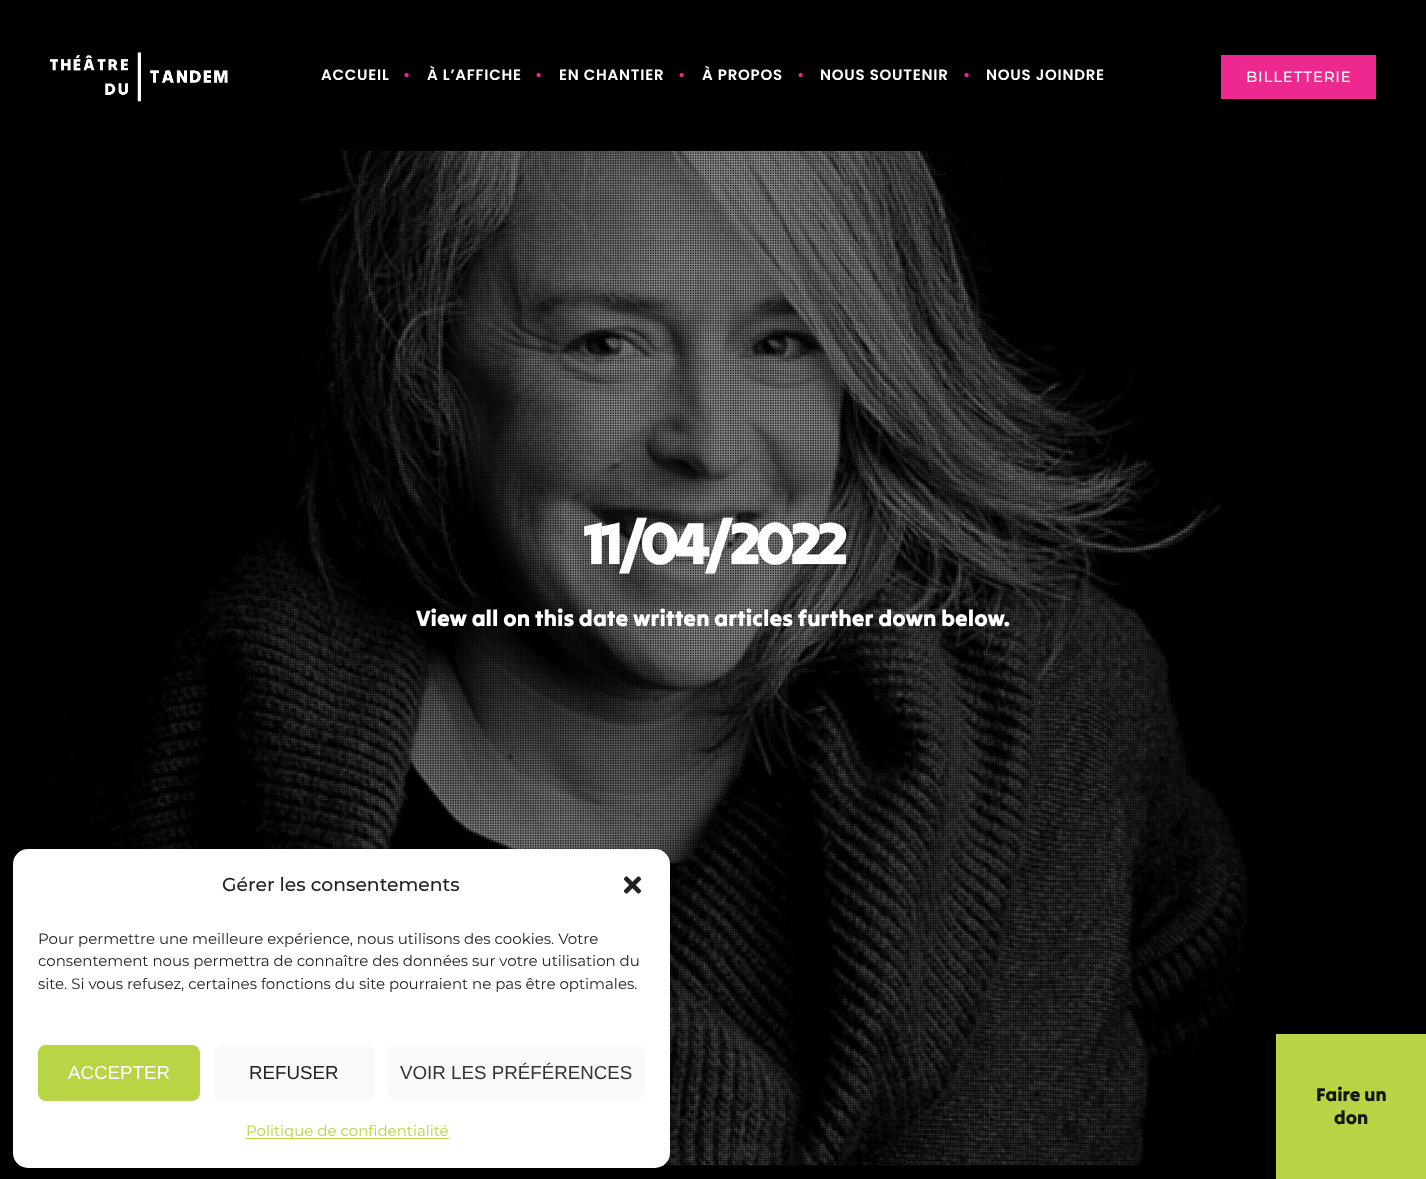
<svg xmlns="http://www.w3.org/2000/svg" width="1426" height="1179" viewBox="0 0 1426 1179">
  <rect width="100%" height="100%" fill="#000"/>
  <image x="50" y="52" width="178" height="50" href="img/1.png"/>
  <path d="M1221 55h155v44H1221z" fill="#ed288f"/>
  <image x="0" y="151" width="1426" height="1014" href="img/2.png"/>
  <image x="7" y="151" width="1242" height="1014" href="img/3.png"/>
  <rect x="13" y="856" width="657" height="319" rx="15" fill="#0000003b" filter="blur(4px)"/>
  <rect x="13" y="861" width="657" height="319" rx="15" fill="#00000030" filter="blur(12.5px)"/>
  <rect x="13" y="849" width="657" height="319" rx="15" fill="#fff"/>
  <image x="623" y="876" width="19" height="18" href="img/4.png"/>
  <rect x="38" y="1045" width="162" height="56" rx="8" fill="#b7d545"/>
  <rect x="213" y="1045" width="162" height="56" rx="8" fill="#f9f9f9"/>
  <rect x="388" y="1045" width="257" height="56" rx="8" fill="#f9f9f9"/>
  <path d="M246 1138h203v1H246z" fill="#b7d545"/>
  <path d="M1276 1034h150v145H1276z" fill="#b7d444"/>
  <text x="321" y="80" font-family="Poppins" font-size="15" font-weight="600" letter-spacing="0.75" fill="#fff">ACCUEIL</text>
  <text x="403" y="80" font-family="Poppins" font-size="15" font-weight="600" letter-spacing="0.75" fill="#ed288f">•</text>
  <text x="427" y="80" font-family="Poppins" font-size="15" font-weight="600" letter-spacing="0.75" fill="#fff">À L’AFFICHE</text>
  <text x="535" y="80" font-family="Poppins" font-size="15" font-weight="600" letter-spacing="0.75" fill="#ed288f">•</text>
  <text x="559" y="80" font-family="Poppins" font-size="15" font-weight="600" letter-spacing="0.75" fill="#fff">EN CHANTIER</text>
  <text x="678" y="80" font-family="Poppins" font-size="15" font-weight="600" letter-spacing="0.75" fill="#ed288f">•</text>
  <text x="702" y="80" font-family="Poppins" font-size="15" font-weight="600" letter-spacing="0.75" fill="#fff">À PROPOS</text>
  <text x="797" y="80" font-family="Poppins" font-size="15" font-weight="600" letter-spacing="0.75" fill="#ed288f">•</text>
  <text x="820" y="80" font-family="Poppins" font-size="15" font-weight="600" letter-spacing="0.75" fill="#fff">NOUS SOUTENIR</text>
  <text x="963" y="80" font-family="Poppins" font-size="15" font-weight="600" letter-spacing="0.75" fill="#ed288f">•</text>
  <text x="986" y="80" font-family="Poppins" font-size="15" font-weight="600" letter-spacing="0.75" fill="#fff">NOUS JOINDRE</text>
  <text x="1246" y="82" font-family="Montserrat" font-size="15" font-weight="500" letter-spacing="0.75" fill="#fff">BILLETTERIE</text>
  <text x="583" y="564" font-family="Tilt Warp" font-size="60" letter-spacing="-4.75" fill="#fff">11/04/2022</text>
  <text x="416" y="626" font-family="Tilt Warp" font-size="22.5" fill="#fff">View all on this date written articles further down below.</text>
  <text x="222" y="891" font-family="Montserrat" font-size="18.75" font-weight="500" fill="#222">Gérer les consentements</text>
  <g font-family="Montserrat" font-size="15" fill="#222">
    <text x="38" y="944">Pour permettre une meilleure expérience, nous utilisons des cookies. Votre</text>
    <text x="38" y="966">consentement nous permettra de connaître des données sur votre utilisation du</text>
    <text x="38" y="989">site. Si vous refusez, certaines fonctions du site pourraient ne pas être optimales.</text>
  </g>
  <text x="68" y="1079" font-family="Liberation Sans" font-size="18.75" fill="#fff">ACCEPTER</text>
  <text x="249" y="1079" font-family="Liberation Sans" font-size="18.75" fill="#222">REFUSER</text>
  <text x="400" y="1079" font-family="Liberation Sans" font-size="18.75" fill="#333">VOIR LES PRÉFÉRENCES</text>
  <text x="246" y="1136" font-family="Montserrat" font-size="15" fill="#b7d545">Politique de confidentialité</text>
  <g font-family="Tilt Warp" font-size="18.75" fill="#151515">
    <text x="1316" y="1101">Faire un</text>
    <text x="1334" y="1124">don</text>
  </g>
</svg>
